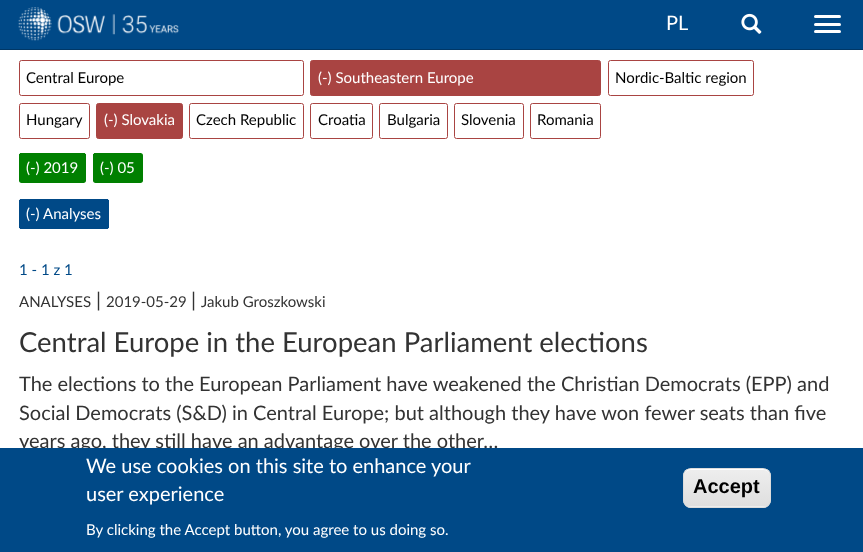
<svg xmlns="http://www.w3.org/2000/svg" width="863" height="552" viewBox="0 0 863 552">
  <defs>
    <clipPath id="clip1"><rect x="683" y="468" width="88" height="40" rx="8"/></clipPath>
    <linearGradient id="g1" gradientUnits="userSpaceOnUse" x1="727" y1="469" x2="727" y2="506"><stop offset="0.05" stop-color="#ededed"/><stop offset="1" stop-color="#dfdfdf"/></linearGradient>
    <linearGradient id="g2" gradientUnits="userSpaceOnUse" x1="727" y1="506" x2="727" y2="544"><stop offset="0.05" stop-color="#ededed"/><stop offset="1" stop-color="#dfdfdf"/></linearGradient>
  </defs>
  <rect width="100%" height="100%" fill="#fff"/>
  <path d="M0 0h863v49H0z" fill="#004987"/>
  <path d="M0 49h863v1H0z" fill="#003766"/>
  <image x="18" y="7" width="161" height="34" href="img/1.png"/>
  <image x="741" y="13" width="21" height="21" href="img/2.png"/>
  <rect x="814" y="15" width="27" height="3" rx="1.5" fill="#fff"/>
  <rect x="814" y="23" width="27" height="3" rx="1.5" fill="#fff"/>
  <rect x="814" y="30" width="27" height="3" rx="1.5" fill="#fff"/>
  <rect x="19.5" y="60.5" width="284" height="35" rx="2" fill="none" stroke="#a94442"/>
  <rect x="19.5" y="103.5" width="70" height="35" rx="2" fill="none" stroke="#a94442"/>
  <rect x="96.5" y="103.5" width="86" height="35" rx="2" fill="#a94442" stroke="#a94442"/>
  <rect x="189.5" y="103.5" width="114" height="35" rx="2" fill="none" stroke="#a94442"/>
  <rect x="310.5" y="60.5" width="290" height="35" rx="2" fill="#a94442" stroke="#a94442"/>
  <rect x="310.5" y="103.5" width="62" height="35" rx="2" fill="none" stroke="#a94442"/>
  <rect x="379.5" y="103.5" width="68" height="35" rx="2" fill="none" stroke="#a94442"/>
  <rect x="454.5" y="103.5" width="69" height="35" rx="2" fill="none" stroke="#a94442"/>
  <rect x="530.5" y="103.5" width="70" height="35" rx="2" fill="none" stroke="#a94442"/>
  <rect x="608.5" y="60.5" width="145" height="35" rx="2" fill="none" stroke="#a94442"/>
  <path d="M21.5 153H40V183H21.5C20 183 19 182 19 180.5V155.5C19 154 20 153 21.5 153Z" fill="#008000"/>
  <path d="M20 153h2v1H20z" fill="#008000"/>
  <path d="M19 154h1v27H19z" fill="#008000"/>
  <path d="M40 153h4v30H40z" fill="#008000"/>
  <path d="M44 153H83.5C85 153 86 154 86 155.5V180.5C86 182 85 183 83.5 183H44Z" fill="#008000"/>
  <path d="M83 153h2v1H83z" fill="#008000"/>
  <path d="M85 154h1v27H85z" fill="#008000"/>
  <path d="M95.5 153H114V183H95.5C94 183 93 182 93 180.5V155.5C93 154 94 153 95.5 153Z" fill="#008000"/>
  <path d="M94 153h2v1H94z" fill="#008000"/>
  <path d="M93 154h1v27H93z" fill="#008000"/>
  <path d="M114 153h4v30H114z" fill="#008000"/>
  <path d="M118 153H140.5C142 153 143 154 143 155.5V180.5C143 182 142 183 140.5 183H118Z" fill="#008000"/>
  <path d="M140 153h1v1H140z" fill="#008000"/>
  <path d="M21.5 199H40V229H21.5C20 229 19 228 19 226.5V201.5C19 200 20 199 21.5 199Z" fill="#004987"/>
  <path d="M20 199h2v1H20z" fill="#004987"/>
  <path d="M20 228h2v1H20z" fill="#004987"/>
  <path d="M19 200h1v28H19z" fill="#004987"/>
  <path d="M40 199h4v30H40z" fill="#004987"/>
  <path d="M44 199H106.5C108 199 109 200 109 201.5V226.5C109 228 108 229 106.5 229H44Z" fill="#004987"/>
  <path d="M106 199h2v1H106z" fill="#004987"/>
  <path d="M108 200h1v28H108z" fill="#004987"/>
  <path d="M106 228h2v1H106z" fill="#004987"/>
  <text x="666" y="30" font-family="Lato" font-size="20" fill="#fff">PL</text>
  <g font-family="Lato" font-size="15" fill="#000">
    <text x="26" y="83">Central Europe</text>
    <text x="26" y="125">Hungary</text>
  </g>
  <text x="104" y="125" font-family="Lato" font-size="15" fill="#fff">(-) Slovakia</text>
  <text x="196" y="125" font-family="Lato" font-size="15" fill="#000">Czech Republic</text>
  <text x="318" y="83" font-family="Lato" font-size="15" fill="#fff">(-) Southeastern Europe</text>
  <g font-family="Lato" font-size="15" fill="#000">
    <text x="318" y="125">Croatia</text>
    <text x="387" y="125">Bulgaria</text>
    <text x="461" y="125">Slovenia</text>
    <text x="537" y="125">Romania</text>
    <text x="615" y="83">Nordic-Baltic region</text>
  </g>
  <g font-family="Lato" font-size="15" fill="#fff">
    <text x="26" y="173">(-) 2019</text>
    <text x="100" y="173">(-) 05</text>
    <text x="26" y="219">(-)</text>
    <text x="43" y="219">Analyses</text>
  </g>
  <text x="19" y="275" font-family="Lato" font-size="15" fill="#004987">1 - 1 z 1</text>
  <text x="19" y="307" font-family="Lato" font-size="15" fill="#333">ANALYSES</text>
  <text x="96" y="307" font-family="Lato" font-size="20" fill="#333">|</text>
  <text x="106" y="307" font-family="Lato" font-size="15" fill="#333">2019-05-29</text>
  <text x="191" y="307" font-family="Lato" font-size="20" fill="#333">|</text>
  <text x="201" y="307" font-family="Lato" font-size="15" fill="#333">Jakub Groszkowski</text>
  <text x="19" y="352" font-family="Lato" font-size="27.5" fill="#333">Central Europe in the European Parliament elections</text>
  <g font-family="Lato" font-size="20" fill="#333">
    <text x="19" y="391">The elections to the European Parliament have weakened the Christian Democrats (EPP) and</text>
    <text x="19" y="420">Social Democrats (S&amp;D) in Central Europe; but although they have won fewer seats than five</text>
    <text x="19" y="448">years ago, they still have an advantage over the other…</text>
  </g>
  <path d="M0 448h863v104H0z" fill="#004987"/>
  <g font-family="Lato" font-size="20" fill="#fff">
    <text x="86" y="473">We use cookies on this site to enhance your</text>
    <text x="86" y="501">user experience</text>
  </g>
  <text x="86" y="535" font-family="Lato" font-size="15" fill="#fff">By clicking the Accept button, you agree to us doing so.</text>
  <g clip-path="url(#clip1)">
    <path d="M683 469h88v37H683z" fill="url(#g1)"/>
    <path d="M683 506h88v2H683z" fill="url(#g2)"/>
  </g>
  <path d="M690 470H764C767 470 770 473 770 476C770 466 758 469 752 469H702C696 469 684 466 684 476C684 473 687 470 690 470Z" fill="#fff"/>
  <rect x="683.5" y="468.5" width="87" height="39" rx="7.5" fill="none" stroke="#dcdcdc"/>
  <text x="693" y="493" font-family="Liberation Sans" font-size="20" font-weight="bold" fill="#000">Accept</text>
</svg>
